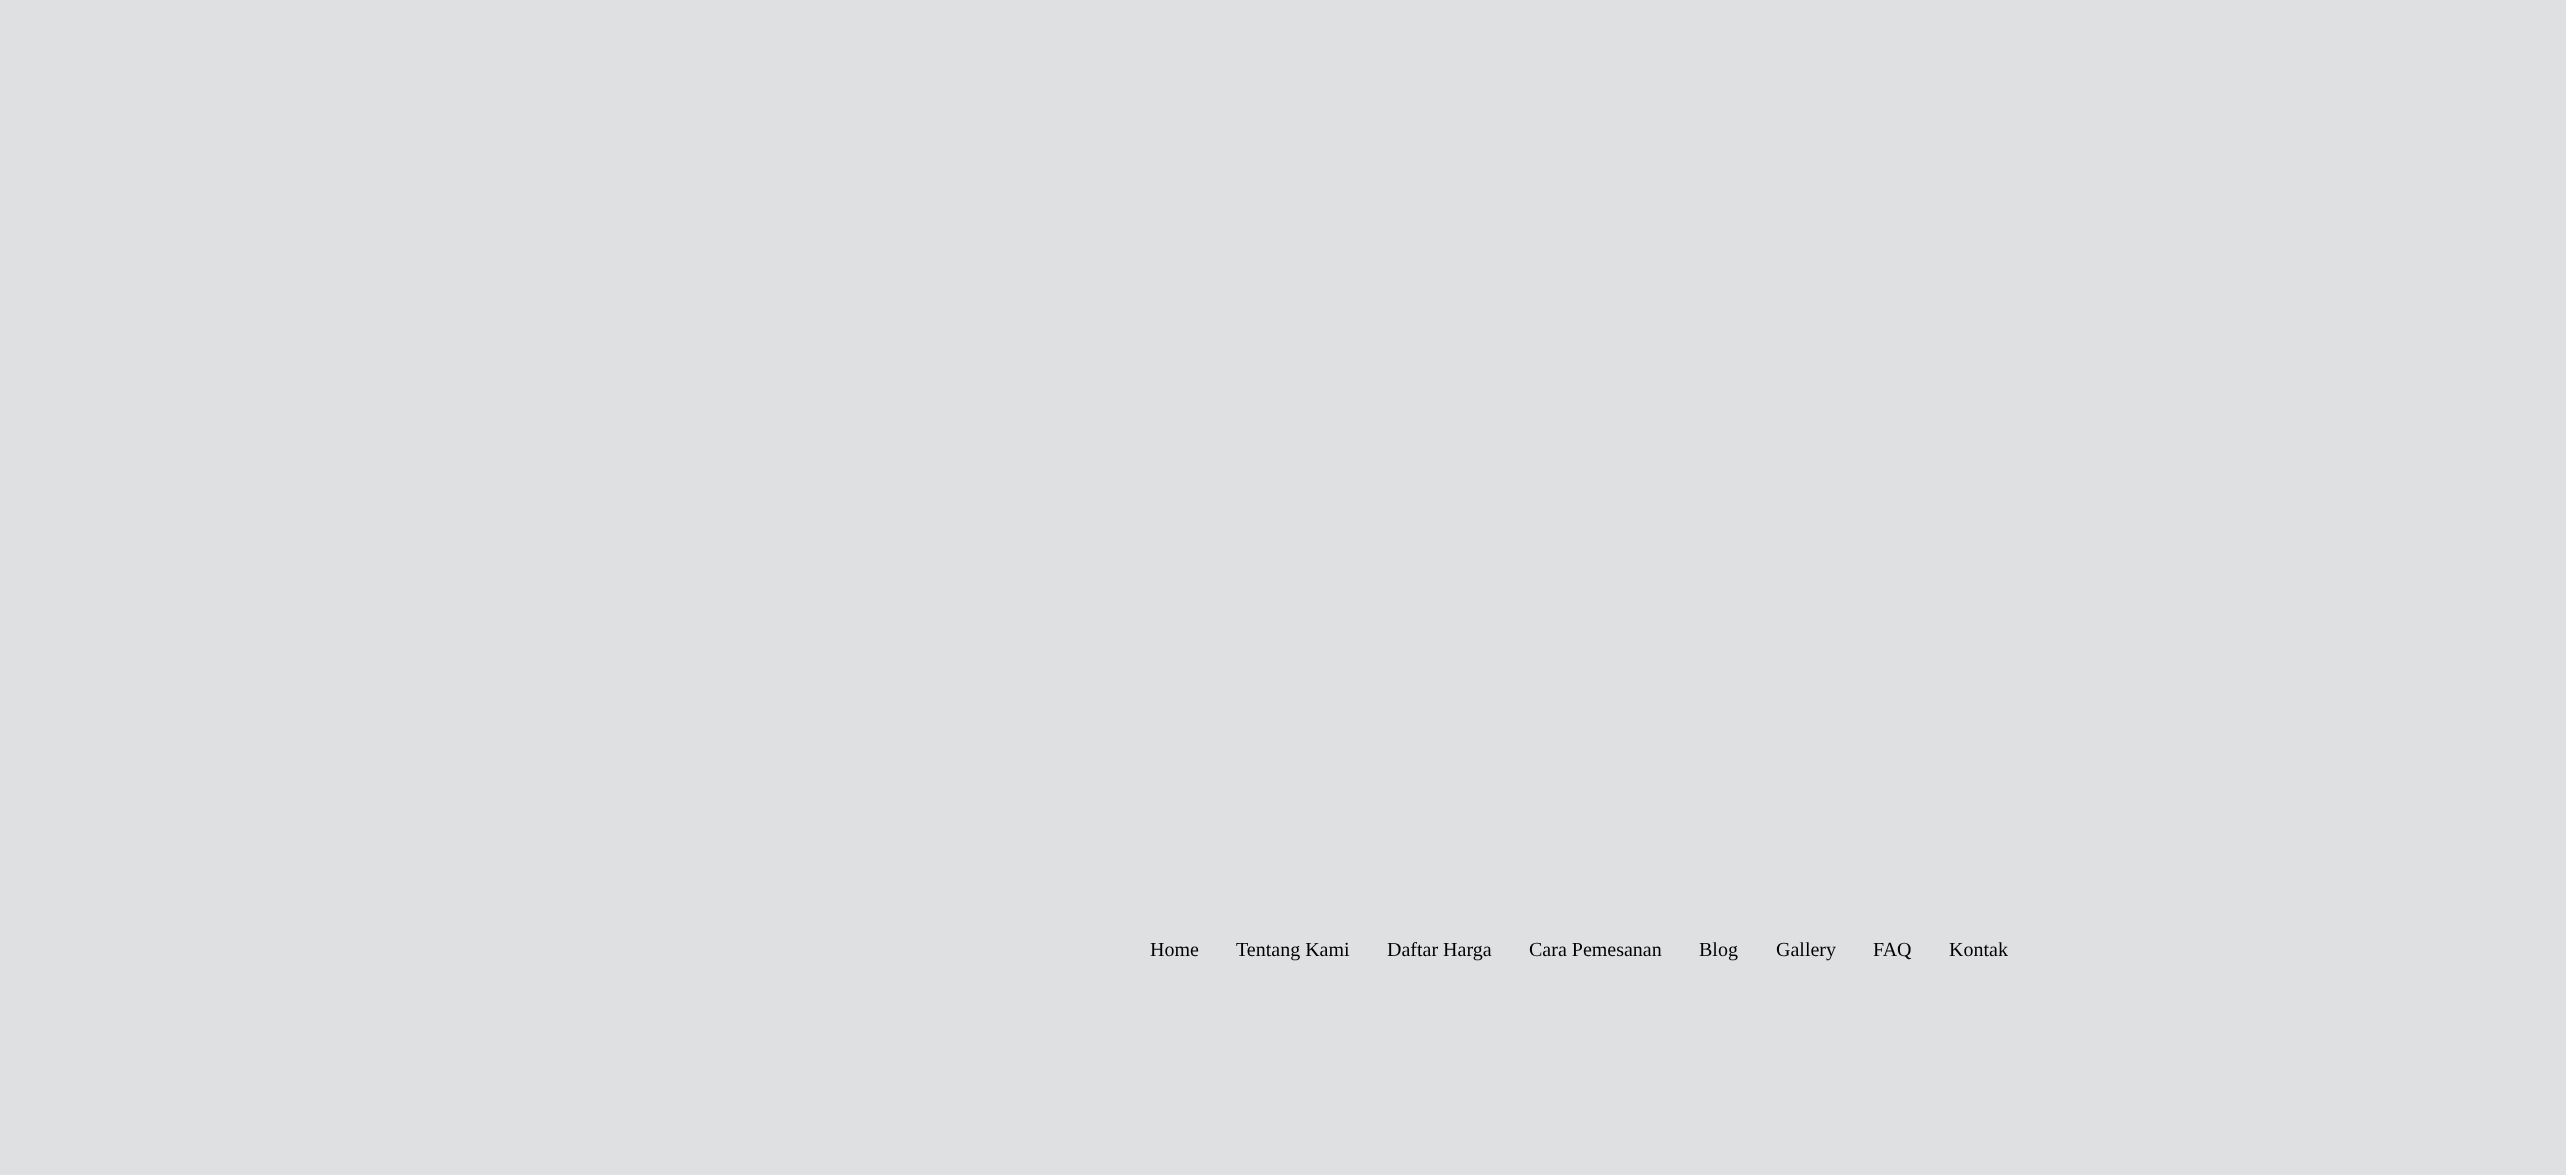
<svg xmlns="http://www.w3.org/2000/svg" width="2566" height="1175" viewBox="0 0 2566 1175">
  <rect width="100%" height="100%" fill="#dfe0e1"/>
  <g font-family="Liberation Serif" font-size="20" fill="#000">
    <text x="1150" y="956">Home</text>
    <text x="1236" y="956">Tentang Kami</text>
    <text x="1387" y="956">Daftar Harga</text>
    <text x="1529" y="956">Cara Pemesanan</text>
    <text x="1699" y="956">Blog</text>
    <text x="1776" y="956">Gallery</text>
    <text x="1873" y="956">FAQ</text>
    <text x="1949" y="956">Kontak</text>
  </g>
</svg>
